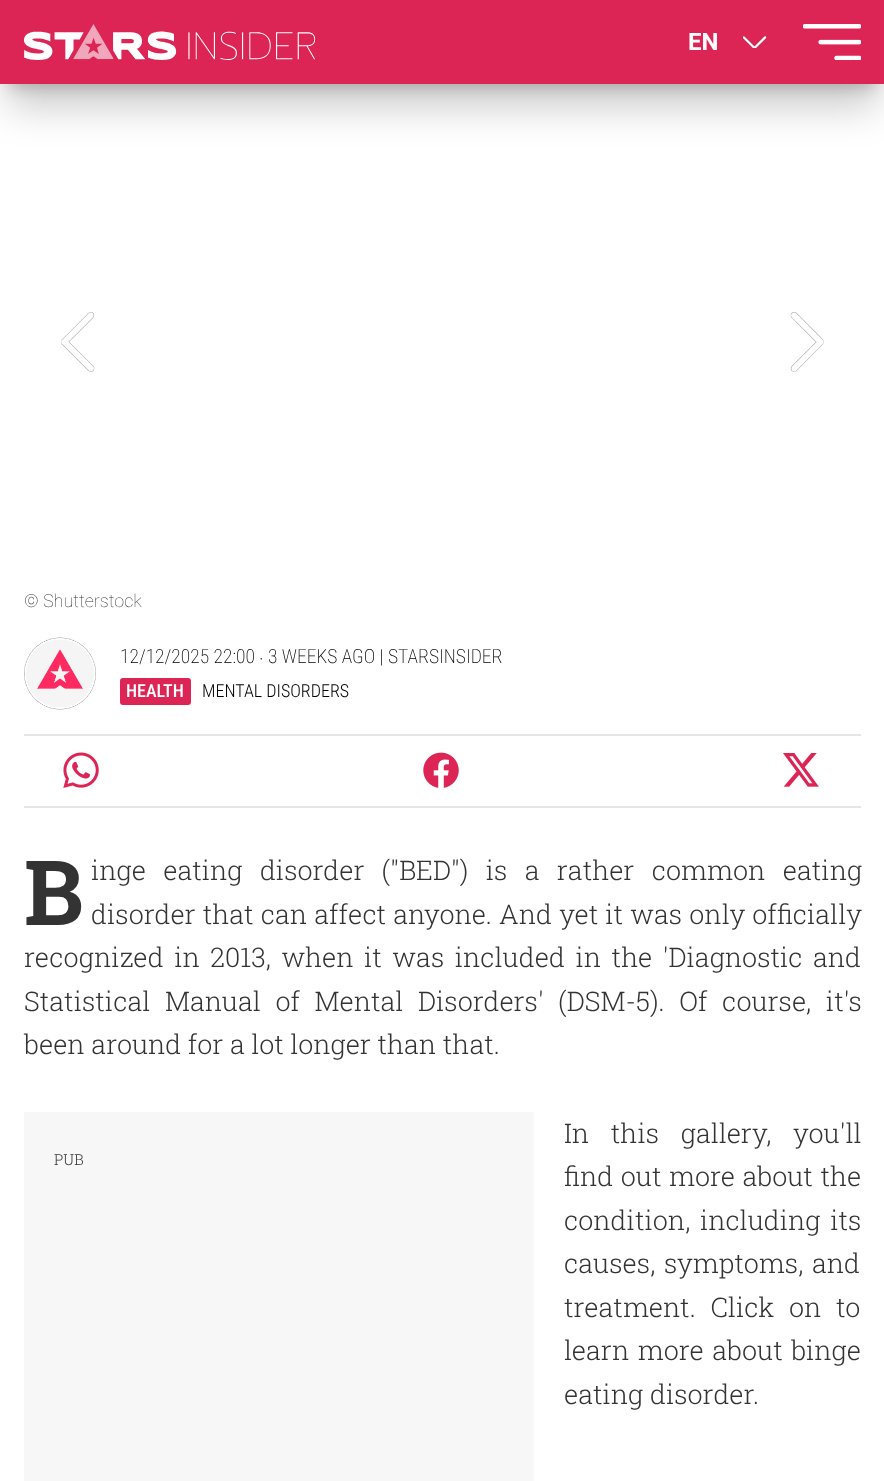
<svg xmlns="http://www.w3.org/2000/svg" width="884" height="1481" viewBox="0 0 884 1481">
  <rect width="100%" height="100%" fill="#fff"/>
  <path d="M9 21h867v66H9z" fill="#00000033" filter="blur(7.5px)"/>
  <path d="M8 38h870v69H8z" fill="#00000033" filter="blur(19px)"/>
  <path d="M0 0h884v84H0z" fill="#dc2555"/>
  <image x="24" y="24" width="292" height="36" href="img/1.png"/>
  <image x="743" y="36" width="24" height="12" href="img/2.png"/>
  <image x="803" y="24" width="58" height="36" href="img/3.png"/>
  <image x="61" y="312" width="34" height="60" href="img/4.png"/>
  <image x="790" y="312" width="34" height="60" href="img/5.png"/>
  <image x="24" y="637" width="72" height="73" href="img/6.png"/>
  <rect x="120" y="678" width="71" height="27" rx="3" fill="#dc2555"/>
  <path d="M24 734h837v2H24z" fill="#e6e6e6"/>
  <path d="M24 806h837v2H24z" fill="#e6e6e6"/>
  <image x="63" y="752" width="36" height="36" href="img/7.png"/>
  <image x="423" y="752" width="36" height="36" href="img/8.png"/>
  <image x="783" y="753" width="36" height="34" href="img/9.png"/>
  <path d="M24 1112h510v369H24z" fill="#f7f7f7"/>
  <text x="688" y="50" font-family="Roboto" font-size="24" font-weight="bold" fill="#fff">EN</text>
  <text x="24" y="607" font-family="Roboto" font-size="18" font-weight="100" fill="#333">© Shutterstock</text>
  <text x="120" y="663" font-family="Roboto Condensed" font-size="19.5" font-weight="200" fill="#000">12/12/2025 22:00</text>
  <text x="259" y="663" font-family="Noto Sans" font-size="19.5" font-weight="200" fill="#000">‧</text>
  <text x="268" y="663" font-family="Roboto Condensed" font-size="19.5" font-weight="200" fill="#000">3 WEEKS AGO | STARSINSIDER</text>
  <text x="126" y="697" font-family="Roboto Condensed" font-size="18" font-weight="500" fill="#fff">HEALTH</text>
  <text x="202" y="697" font-family="Roboto Condensed" font-size="18" font-weight="300" fill="#000">MENTAL DISORDERS</text>
  <text x="24" y="925" font-family="Roboto Slab" font-size="90" font-weight="bold" fill="#333">B</text>
  <g font-family="Roboto Slab" font-size="27" font-weight="300" fill="#333">
    <text x="91" y="880" word-spacing="10.75">inge eating disorder ("BED") is a rather common eating</text>
    <text x="91" y="924" word-spacing="0.5">disorder that can affect anyone. And yet it was only officially</text>
    <text x="24" y="967" word-spacing="3.9">recognized in 2013, when it was included in the 'Diagnostic and</text>
    <text x="24" y="1011" word-spacing="8">Statistical Manual of Mental Disorders' (DSM-5). Of course, it's</text>
    <text x="24" y="1054">been around for a lot longer than that.</text>
  </g>
  <text x="54" y="1165" font-family="Roboto Slab" font-size="15" font-weight="300" fill="#333">PUB</text>
  <g font-family="Roboto Slab" font-size="27" font-weight="300" fill="#333">
    <text x="564" y="1143" word-spacing="15">In this gallery, you'll</text>
    <text x="564" y="1186" word-spacing="1">find out more about the</text>
    <text x="564" y="1230" word-spacing="3">condition, including its</text>
    <text x="564" y="1273" word-spacing="2">causes, symptoms, and</text>
    <text x="564" y="1317" word-spacing="8">treatment. Click on to</text>
    <text x="564" y="1360" word-spacing="2">learn more about binge</text>
    <text x="564" y="1404">eating disorder.</text>
  </g>
</svg>
